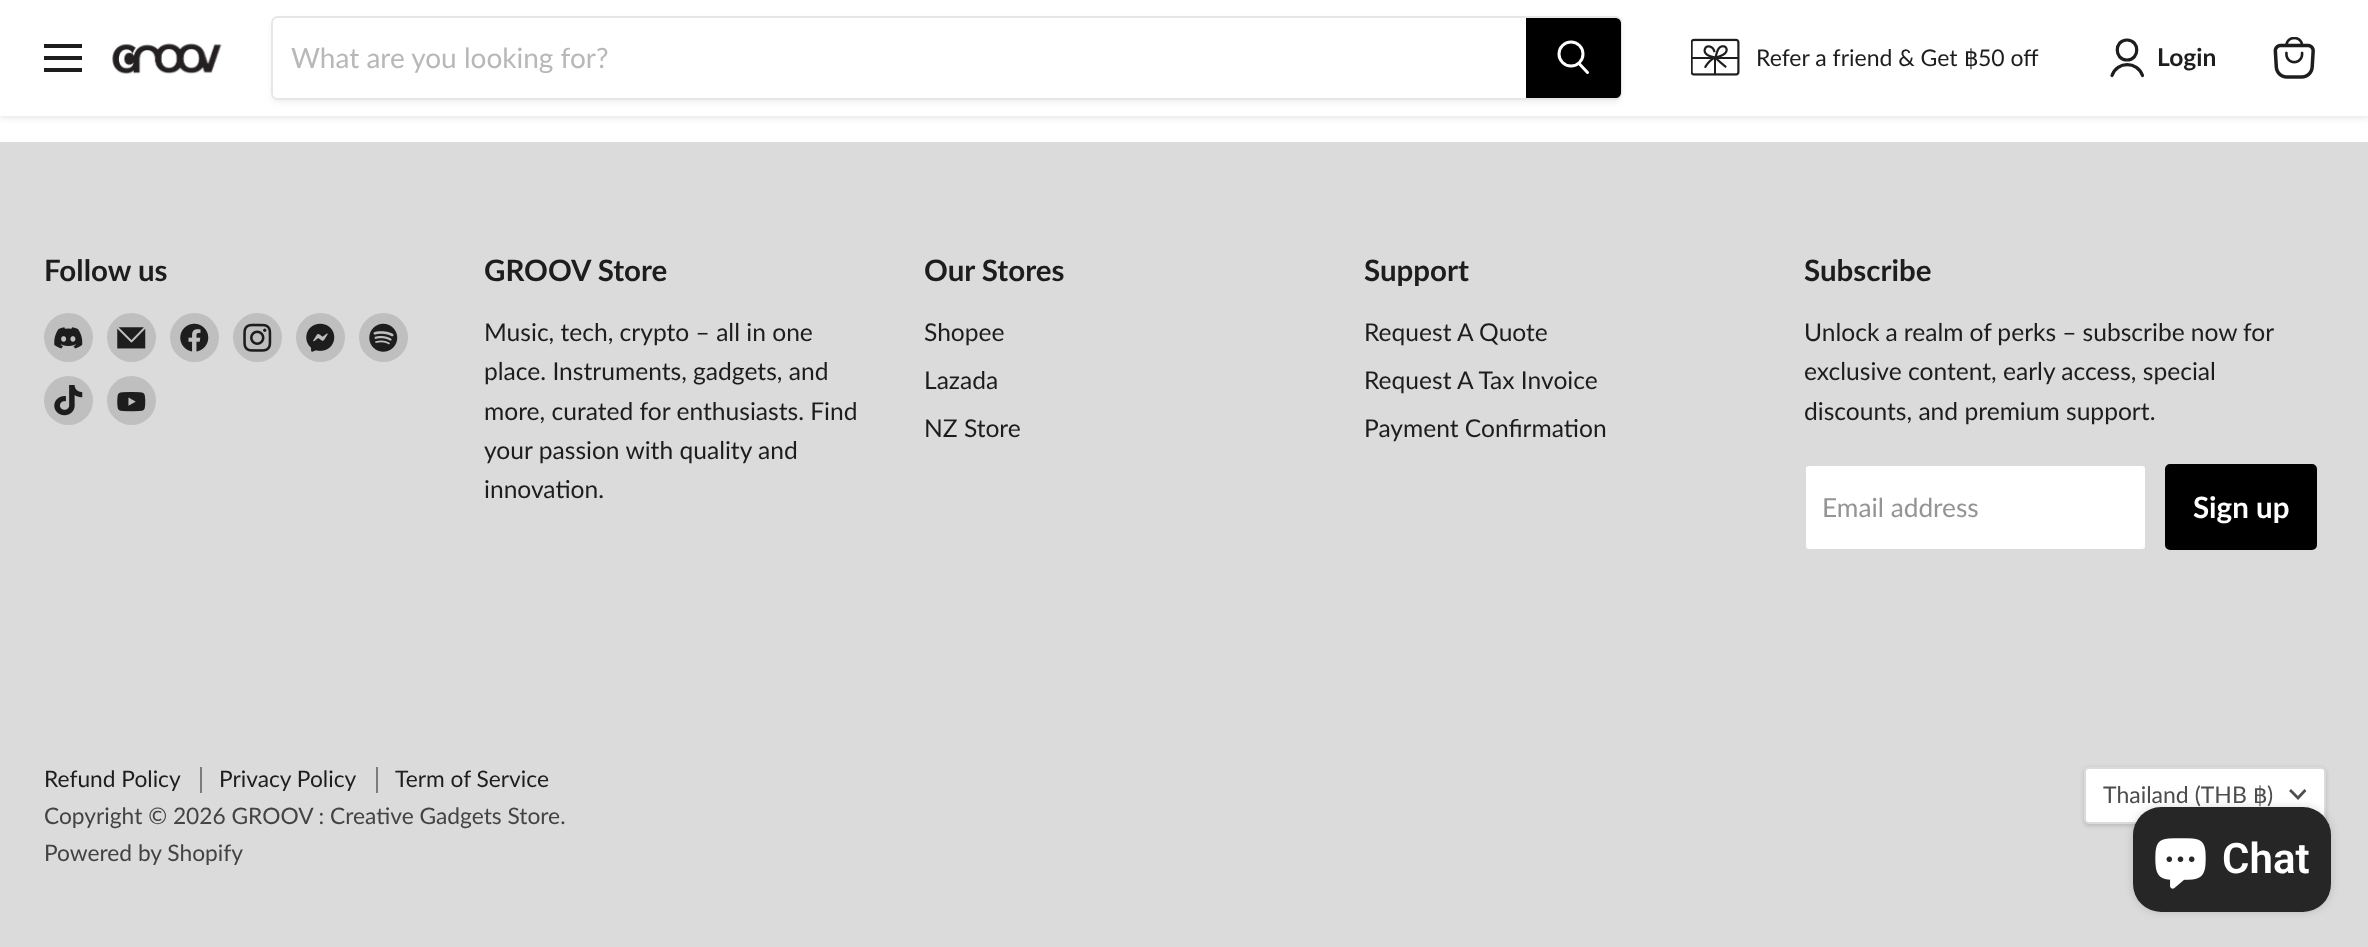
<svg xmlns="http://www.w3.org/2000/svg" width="2368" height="947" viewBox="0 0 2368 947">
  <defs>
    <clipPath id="clip1"><path d="M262 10H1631V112H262ZM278 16H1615C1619 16 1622 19 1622 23V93C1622 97 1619 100 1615 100H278C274 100 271 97 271 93V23C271 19 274 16 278 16Z" clip-rule="evenodd"/></clipPath>
  </defs>
  <rect width="100%" height="100%" fill="#fff"/>
  <path d="M0 2h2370v115H0z" fill="#80808040" filter="blur(3.5px)"/>
  <path d="M0 0h2368v116H0z" fill="#fff"/>
  <path d="M44 44h38v4H44z" fill="#1d1d1d"/>
  <path d="M44 56h38v4H44z" fill="#1d1d1d"/>
  <path d="M44 68h38v4H44z" fill="#1d1d1d"/>
  <image x="112" y="43" width="110" height="32" href="img/1.png"/>
  <g clip-path="url(#clip1)">
    <rect x="271" y="19" width="1351" height="84" rx="7" fill="#8080801c" filter="blur(2.5px)"/>
  </g>
  <rect x="272" y="17" width="1349" height="82" rx="6" fill="none" stroke="#80808033" stroke-width="2"/>
  <path d="M278 18H1526V98H278C275 98 273 96 273 93V23C273 20 275 18 278 18Z" fill="#fff"/>
  <path d="M1527 19H1616C1618 19 1620 21 1620 23V93C1620 95 1618 97 1616 97H1527Z" fill="#000" stroke="#000" stroke-width="2"/>
  <path d="M1587.5 72.5L1579.5 64" fill="none" stroke="#fff" stroke-width="3" stroke-linecap="round"/>
  <circle cx="1571" cy="54" r="12" fill="none" stroke="#fff" stroke-width="3"/>
  <image x="1691" y="38" width="49" height="38" href="img/2.png"/>
  <path d="M2127 60C2140 60 2140 40 2127 40C2114 40 2114 60 2127 60ZM2142.5 75.5C2137.5 61 2117 61 2112 75.5" fill="none" stroke="#1d1d1d" stroke-width="3.2" stroke-linecap="round" stroke-linejoin="round"/>
  <image x="2273" y="37" width="42" height="42" href="img/3.png"/>
  <path d="M0 142h2368v805H0z" fill="#dbdbdb"/>
  <circle cx="68.5" cy="337.5" r="24.5" fill="#bfbfbf"/>
  <image x="54" y="327" width="29" height="22" href="img/4.png"/>
  <circle cx="131.5" cy="337.5" r="24.5" fill="#bfbfbf"/>
  <image x="117" y="327" width="29" height="22" href="img/5.png"/>
  <circle cx="194.5" cy="337.5" r="24.5" fill="#bfbfbf"/>
  <image x="180" y="323" width="29" height="29" href="img/6.png"/>
  <circle cx="257.5" cy="337.5" r="24.5" fill="#bfbfbf"/>
  <image x="243" y="323" width="29" height="29" href="img/7.png"/>
  <circle cx="320.5" cy="337.5" r="24.5" fill="#bfbfbf"/>
  <image x="306" y="323" width="29" height="29" href="img/8.png"/>
  <circle cx="383.5" cy="337.5" r="24.5" fill="#bfbfbf"/>
  <image x="369" y="323" width="29" height="29" href="img/9.png"/>
  <circle cx="68.5" cy="400.5" r="24.5" fill="#bfbfbf"/>
  <image x="54" y="385" width="29" height="31" href="img/10.png"/>
  <circle cx="131.5" cy="400.5" r="24.5" fill="#bfbfbf"/>
  <image x="117" y="392" width="29" height="20" href="img/11.png"/>
  <rect x="1805" y="465" width="341" height="85" rx="4" fill="#fff" stroke="#dbdbdb" stroke-width="2"/>
  <rect x="2166" y="465" width="150" height="84" rx="4" fill="#000" stroke="#000" stroke-width="2"/>
  <path d="M200 767h2v26H200z" fill="#7c7c7c"/>
  <path d="M376 767h2v26H376z" fill="#7c7c7c"/>
  <rect x="2084" y="768" width="242" height="58" rx="5" fill="#00000026" filter="blur(2px)"/>
  <rect x="2085" y="768" width="240" height="55" rx="4" fill="#fff" stroke="#dbdbdb" stroke-width="2"/>
  <path d="M2298 798L2304.5 791M2298 798L2291 791" fill="none" stroke="#4d4d4d" stroke-width="2.7" stroke-linecap="square"/>
  <rect x="2133" y="807" width="198" height="105" rx="28" fill="#00000026" filter="blur(4.5px)"/>
  <rect x="2133" y="807" width="198" height="105" rx="28" fill="#262626"/>
  <image x="2155" y="838" width="51" height="51" href="img/12.png"/>
  <text x="291" y="68" font-family="Lato" font-size="28" fill="#b8b8b8">What are you looking for?</text>
  <text x="1756" y="66" font-family="Lato" font-size="23" fill="#1d1d1d">Refer a friend &amp; Get</text>
  <text x="1964" y="66" font-family="DejaVu Sans" font-size="23" fill="#1d1d1d">฿</text>
  <text x="1978" y="66" font-family="Lato" font-size="23" fill="#1d1d1d">50 off</text>
  <text x="2157" y="66" font-family="Lato" font-size="24.6" font-weight="bold" fill="#1d1d1d">Login</text>
  <g font-family="Lato" font-size="29.5" font-weight="bold" fill="#1d1d1d">
    <text x="44" y="281">Follow us</text>
    <text x="484" y="281">GROOV Store</text>
  </g>
  <g font-family="Lato" font-size="24.6" fill="#1d1d1d">
    <text x="484" y="341">Music, tech, crypto – all in one</text>
    <text x="484" y="380">place. Instruments, gadgets, and</text>
    <text x="484" y="420">more, curated for enthusiasts. Find</text>
    <text x="484" y="459">your passion with quality and</text>
    <text x="484" y="498">innovation.</text>
  </g>
  <text x="924" y="281" font-family="Lato" font-size="29.5" font-weight="bold" fill="#1d1d1d">Our Stores</text>
  <g font-family="Lato" font-size="24.6" fill="#1d1d1d">
    <text x="924" y="341">Shopee</text>
    <text x="924" y="389">Lazada</text>
    <text x="924" y="437">NZ Store</text>
  </g>
  <text x="1364" y="281" font-family="Lato" font-size="29.5" font-weight="bold" fill="#1d1d1d">Support</text>
  <g font-family="Lato" font-size="24.6" fill="#1d1d1d">
    <text x="1364" y="341">Request A Quote</text>
    <text x="1364" y="389">Request A Tax Invoice</text>
    <text x="1364" y="437">Payment Confirmation</text>
  </g>
  <text x="1804" y="281" font-family="Lato" font-size="29.5" font-weight="bold" fill="#1d1d1d">Subscribe</text>
  <g font-family="Lato" font-size="24.6" fill="#1d1d1d">
    <text x="1804" y="341" word-spacing="-0.25">Unlock a realm of perks – subscribe now for</text>
    <text x="1804" y="380">exclusive content, early access, special</text>
    <text x="1804" y="420">discounts, and premium support.</text>
  </g>
  <text x="1822" y="517" font-family="Lato" font-size="26.25" fill="#949494">Email address</text>
  <text x="2193" y="518" font-family="Lato" font-size="29.5" font-weight="bold" fill="#fff">Sign up</text>
  <g font-family="Lato" font-size="22.75" fill="#1d1d1d">
    <text x="44" y="787">Refund Policy</text>
    <text x="219" y="787">Privacy Policy</text>
    <text x="395" y="787">Term of Service</text>
  </g>
  <g font-family="Lato" font-size="22.75" fill="#434343">
    <text x="44" y="824">Copyright © 2026 GROOV : Creative Gadgets Store.</text>
    <text x="44" y="861">Powered by Shopify</text>
  </g>
  <text x="2103" y="803" font-family="Lato" font-size="23" fill="#4d4d4d">Thailand (THB</text>
  <text x="2253" y="803" font-family="DejaVu Sans" font-size="23" fill="#4d4d4d">฿</text>
  <text x="2267" y="803" font-family="Lato" font-size="23" fill="#4d4d4d">)</text>
  <text x="2222" y="873" font-family="Roboto" font-size="42" font-weight="600" fill="#fff">Chat</text>
</svg>
